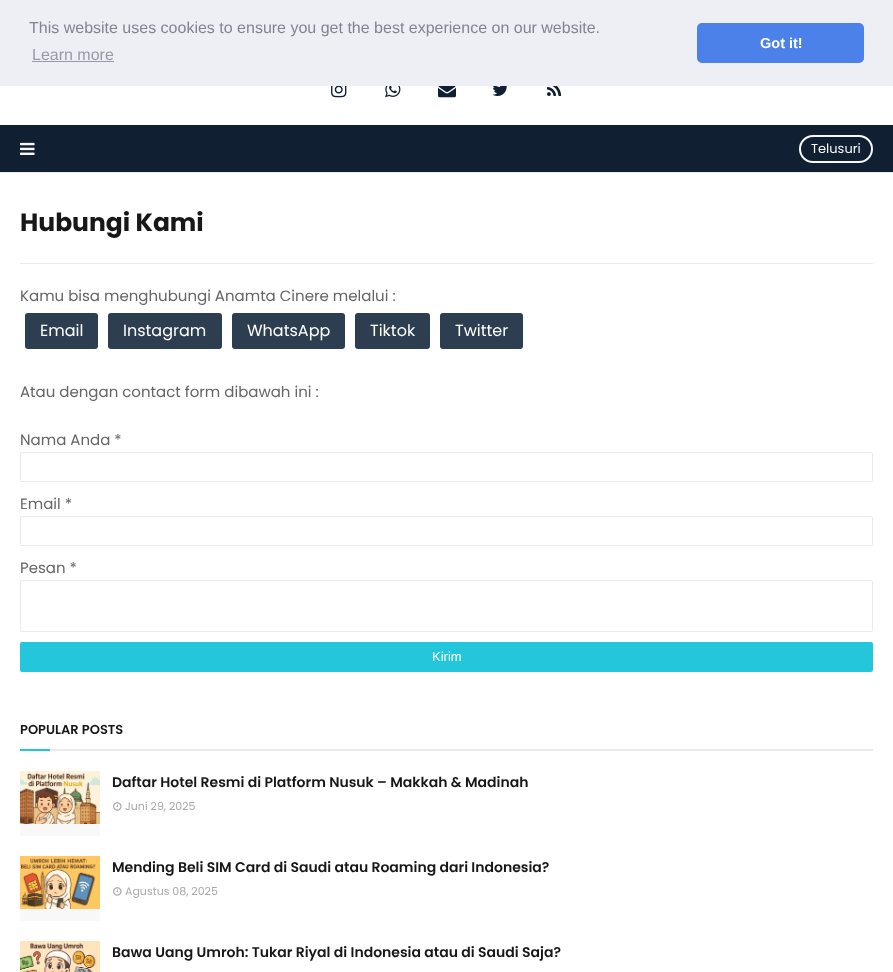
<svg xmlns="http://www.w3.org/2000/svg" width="893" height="972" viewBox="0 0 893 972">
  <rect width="100%" height="100%" fill="#fff"/>
  <path d="M0 0h893v86H0z" fill="#edeff5"/>
  <path d="M32 61h82v1H32z" fill="#9899a5"/>
  <rect x="697" y="23" width="167" height="40" rx="5" fill="#4b81e8"/>
  <image x="331" y="86" width="16" height="12" href="img/1.png"/>
  <image x="385" y="86" width="16" height="12" href="img/2.png"/>
  <image x="438" y="86" width="18" height="12" href="img/3.png"/>
  <image x="492" y="86" width="15" height="10" href="img/4.png"/>
  <image x="547" y="86" width="15" height="10" href="img/5.png"/>
  <path d="M0 125h893v47H0z" fill="#101f32"/>
  <path d="M0 172h893v1H0z" fill="#ebebeb"/>
  <image x="20" y="142" width="15" height="13" href="img/6.png"/>
  <rect x="800" y="136" width="72" height="26" rx="13" fill="none" stroke="#f8f8f8" stroke-width="2"/>
  <path d="M20 263h853v1H20z" fill="#ebebeb"/>
  <rect x="25" y="313" width="73" height="36" rx="3" fill="#2c3e50"/>
  <rect x="108" y="313" width="114" height="36" rx="3" fill="#2c3e50"/>
  <rect x="232" y="313" width="113" height="36" rx="3" fill="#2c3e50"/>
  <rect x="355" y="313" width="75" height="36" rx="3" fill="#2c3e50"/>
  <rect x="440" y="313" width="83" height="36" rx="3" fill="#2c3e50"/>
  <rect x="20.5" y="452.5" width="852" height="29" rx="1.5" fill="none" stroke="#ebebeb"/>
  <rect x="20.5" y="516.5" width="852" height="29" rx="1.5" fill="none" stroke="#ebebeb"/>
  <rect x="20.5" y="580.5" width="852" height="51" rx="1.5" fill="none" stroke="#ebebeb"/>
  <rect x="20" y="642" width="853" height="30" rx="2" fill="#24c6dc"/>
  <path d="M50 749h823v2H50z" fill="#ebebeb"/>
  <path d="M20 749h30v2H20z" fill="#24c6dc"/>
  <path d="M20 824h80v12H20z" fill="#f8f8f8"/>
  <image x="20" y="771" width="80" height="53" href="img/7.png"/>
  <image x="113" y="802" width="9" height="9" href="img/8.png"/>
  <path d="M20 909h80v12H20z" fill="#f8f8f8"/>
  <image x="20" y="856" width="80" height="53" href="img/9.png"/>
  <image x="113" y="887" width="9" height="9" href="img/8.png"/>
  <image x="20" y="941" width="80" height="31" href="img/10.png"/>
  <text x="29" y="33" font-family="Liberation Sans" font-size="16" fill="#838391">This website uses cookies to ensure you get the best experience on our website.</text>
  <text x="32" y="60" font-family="Liberation Sans" font-size="16" fill="#9899a5">Learn more</text>
  <text x="760" y="48" font-family="Liberation Sans" font-size="14.5" font-weight="bold" fill="#fff">Got it!</text>
  <text x="811" y="153" font-family="Poppins" font-size="13" fill="#f8f8f8">Telusuri</text>
  <text x="20" y="231" font-family="Poppins" font-size="25" font-weight="bold" fill="#171717">Hubungi Kami</text>
  <text x="20" y="301" font-family="Poppins" font-size="15" fill="#656565">Kamu bisa menghubungi Anamta Cinere melalui :</text>
  <g font-family="Poppins" font-size="16" fill="#fff">
    <text x="40" y="336">Email</text>
    <text x="123" y="336">Instagram</text>
    <text x="247" y="336">WhatsApp</text>
    <text x="370" y="336">Tiktok</text>
    <text x="455" y="336">Twitter</text>
  </g>
  <g font-family="Poppins" font-size="15" fill="#656565">
    <text x="20" y="397">Atau dengan contact form dibawah ini :</text>
    <text x="20" y="445">Nama Anda *</text>
    <text x="20" y="509">Email *</text>
    <text x="20" y="573">Pesan *</text>
  </g>
  <text x="432" y="661" font-family="Liberation Sans" font-size="13" fill="#fff">Kirim</text>
  <text x="20" y="734" font-family="Poppins" font-size="13" font-weight="600" fill="#171717">POPULAR POSTS</text>
  <text x="112" y="787" font-family="Poppins" font-size="14" font-weight="600" fill="#171717">Daftar Hotel Resmi di Platform Nusuk – Makkah &amp; Madinah</text>
  <text x="125" y="810" font-family="Poppins" font-size="11" fill="#aaa">Juni 29, 2025</text>
  <text x="112" y="872" font-family="Poppins" font-size="14" font-weight="600" fill="#171717">Mending Beli SIM Card di Saudi atau Roaming dari Indonesia?</text>
  <text x="125" y="895" font-family="Poppins" font-size="11" fill="#aaa">Agustus 08, 2025</text>
  <text x="112" y="957" font-family="Poppins" font-size="14" font-weight="600" fill="#171717">Bawa Uang Umroh: Tukar Riyal di Indonesia atau di Saudi Saja?</text>
</svg>
